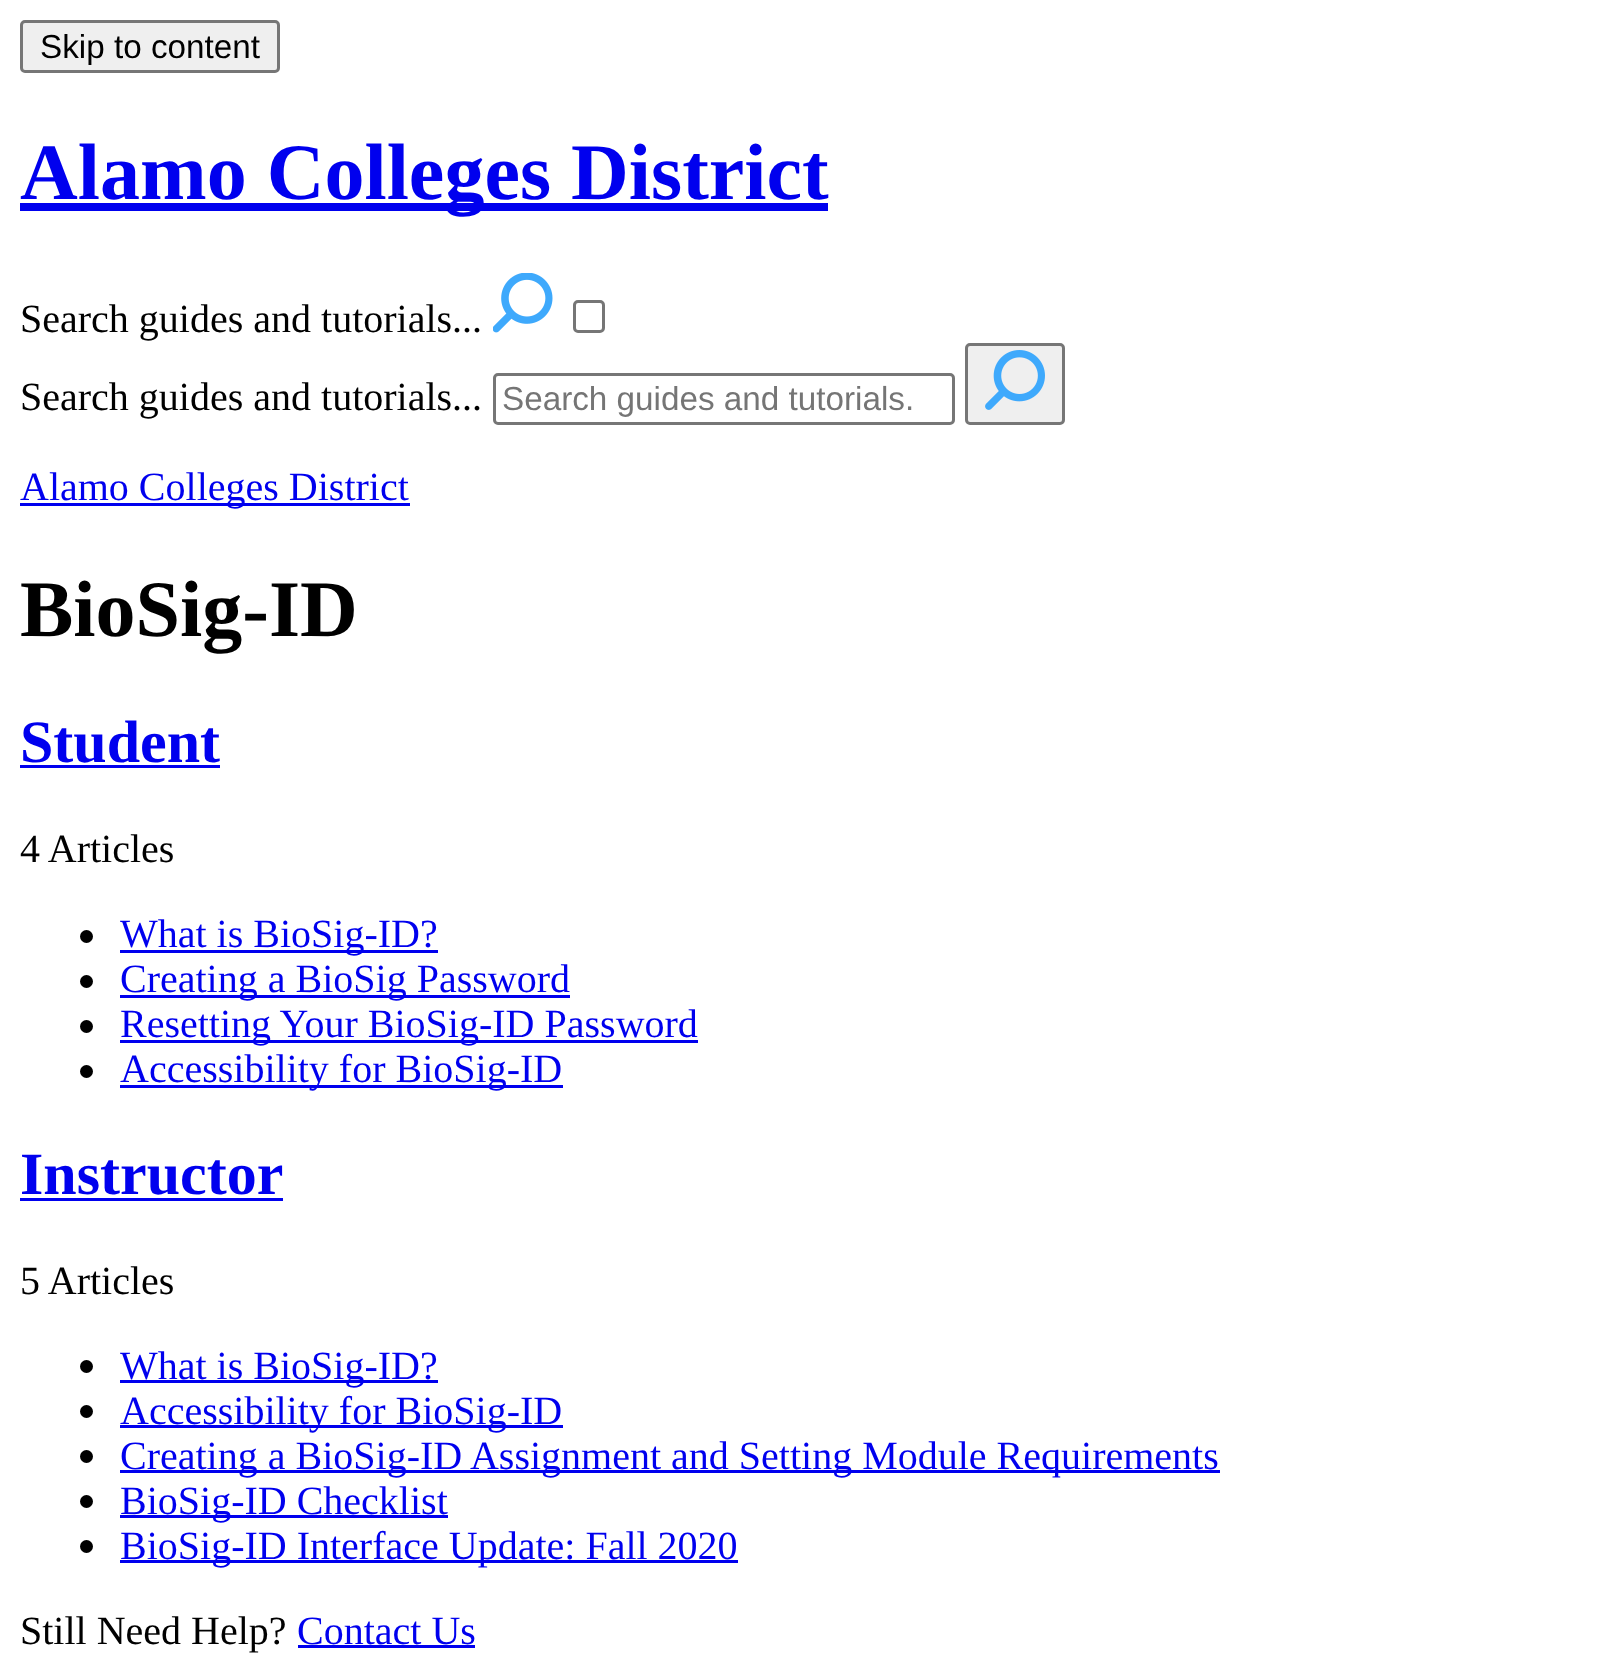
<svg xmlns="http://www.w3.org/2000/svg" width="1598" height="1674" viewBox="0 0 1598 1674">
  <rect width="100%" height="100%" fill="#fff"/>
  <rect x="21.5" y="21.5" width="257" height="50" rx="3.5" fill="#efefef" stroke="#767676" stroke-width="3"/>
  <path d="M20 203h808v8H20z" fill="#00e"/>
  <image x="493" y="273" width="60" height="60" href="img/1.png"/>
  <rect x="574.5" y="301.5" width="29" height="30" rx="3.5" fill="none" stroke="#767676" stroke-width="3"/>
  <rect x="494.5" y="374.5" width="459" height="49" rx="3.5" fill="none" stroke="#767676" stroke-width="3"/>
  <rect x="966.5" y="344.5" width="97" height="79" rx="3.5" fill="#efefef" stroke="#767676" stroke-width="3"/>
  <image x="985" y="350" width="60" height="60" href="img/2.png"/>
  <path d="M20 503h390v3H20z" fill="#00e"/>
  <path d="M20 765h200v3H20z" fill="#00e"/>
  <circle cx="86.5" cy="936.5" r="6.5" fill="#000"/>
  <path d="M120 950h318v3H120z" fill="#00e"/>
  <circle cx="86.5" cy="981.5" r="6.5" fill="#000"/>
  <path d="M120 995h450v3H120z" fill="#00e"/>
  <circle cx="86.5" cy="1026.5" r="6.5" fill="#000"/>
  <path d="M120 1040h578v3H120z" fill="#00e"/>
  <circle cx="86.5" cy="1071.5" r="6.5" fill="#000"/>
  <path d="M120 1085h443v3H120z" fill="#00e"/>
  <path d="M20 1198h263v3H20z" fill="#00e"/>
  <circle cx="86.5" cy="1366.5" r="6.5" fill="#000"/>
  <path d="M120 1380h318v3H120z" fill="#00e"/>
  <circle cx="86.5" cy="1411.5" r="6.5" fill="#000"/>
  <path d="M120 1425h443v3H120z" fill="#00e"/>
  <circle cx="86.5" cy="1456.5" r="6.5" fill="#000"/>
  <path d="M120 1470h1100v3H120z" fill="#00e"/>
  <circle cx="86.5" cy="1501.5" r="6.5" fill="#000"/>
  <path d="M120 1515h328v3H120z" fill="#00e"/>
  <circle cx="86.5" cy="1546.5" r="6.5" fill="#000"/>
  <path d="M120 1560h618v3H120z" fill="#00e"/>
  <path d="M298 1645h177v3H298z" fill="#00e"/>
  <text x="40" y="58" font-family="Liberation Sans" font-size="33.25" fill="#000">Skip to content</text>
  <text x="20" y="199" font-family="Liberation Serif" font-size="80" font-weight="bold" fill="#00e">Alamo Colleges District</text>
  <g font-family="Liberation Serif" font-size="40" fill="#000">
    <text x="20" y="332">Search guides and tutorials...</text>
    <text x="20" y="410">Search guides and tutorials...</text>
  </g>
  <text x="502" y="410" font-family="Liberation Sans" font-size="33.25" fill="#757575">Search guides and tutorials.</text>
  <text x="20" y="500" font-family="Liberation Serif" font-size="40" fill="#00e">Alamo Colleges District</text>
  <text x="20" y="636" font-family="Liberation Serif" font-size="80" font-weight="bold" fill="#000">BioSig-ID</text>
  <text x="20" y="762" font-family="Liberation Serif" font-size="60" font-weight="bold" fill="#00e">Student</text>
  <text x="20" y="862" font-family="Liberation Serif" font-size="40" fill="#000">4 Articles</text>
  <g font-family="Liberation Serif" font-size="40" fill="#00e">
    <text x="120" y="947">What is BioSig-ID?</text>
    <text x="120" y="992">Creating a BioSig Password</text>
    <text x="120" y="1037">Resetting Your BioSig-ID Password</text>
    <text x="120" y="1082">Accessibility for BioSig-ID</text>
  </g>
  <text x="20" y="1194" font-family="Liberation Serif" font-size="60" font-weight="bold" fill="#00e">Instructor</text>
  <text x="20" y="1294" font-family="Liberation Serif" font-size="40" fill="#000">5 Articles</text>
  <g font-family="Liberation Serif" font-size="40" fill="#00e">
    <text x="120" y="1379">What is BioSig-ID?</text>
    <text x="120" y="1424">Accessibility for BioSig-ID</text>
    <text x="120" y="1469">Creating a BioSig-ID Assignment and Setting Module Requirements</text>
    <text x="120" y="1514">BioSig-ID Checklist</text>
    <text x="120" y="1559">BioSig-ID Interface Update: Fall 2020</text>
  </g>
  <text x="20" y="1644" font-family="Liberation Serif" font-size="40" fill="#000">Still Need Help?</text>
  <text x="297" y="1644" font-family="Liberation Serif" font-size="40" fill="#00e">Contact Us</text>
</svg>
